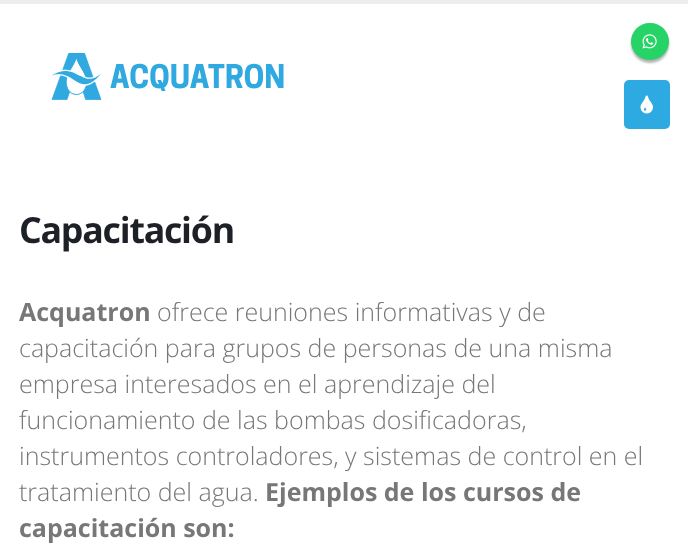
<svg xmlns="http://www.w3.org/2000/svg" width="688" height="559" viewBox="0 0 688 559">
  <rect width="100%" height="100%" fill="#fff"/>
  <path d="M0 0h688v4H0z" fill="#ededed"/>
  <image x="51" y="53" width="233" height="47" href="img/1.png"/>
  <rect x="631" y="25" width="38" height="38" rx="19" fill="#0000004d" filter="blur(1px)"/>
  <rect x="631" y="23" width="38" height="37" rx="18.5" fill="#25d366"/>
  <image x="642" y="34" width="15" height="15" href="img/2.png"/>
  <rect x="624" y="80" width="46" height="49" rx="5" fill="#2daae2"/>
  <image x="640" y="95" width="13" height="19" href="img/3.png"/>
  <text x="19" y="243" font-family="Open Sans" font-size="35.75" font-weight="bold" letter-spacing="-1.25" fill="#1d2127">Capacitación</text>
  <text x="19" y="321" font-family="Open Sans" font-size="25" font-weight="bold" fill="#777">Acquatron</text>
  <g font-family="Open Sans" font-size="25" font-weight="300" fill="#777">
    <text x="157" y="321">ofrece reuniones informativas y de</text>
    <text x="19" y="357">capacitación para grupos de personas de una misma</text>
    <text x="19" y="393">empresa interesados en el aprendizaje del</text>
    <text x="19" y="429">funcionamiento de las bombas dosificadoras,</text>
    <text x="19" y="465">instrumentos controladores, y sistemas de control en el</text>
    <text x="19" y="501">tratamiento del agua.</text>
  </g>
  <g font-family="Open Sans" font-size="25" font-weight="bold" fill="#777">
    <text x="265" y="501">Ejemplos de los cursos de</text>
    <text x="19" y="537">capacitación son:</text>
  </g>
</svg>
